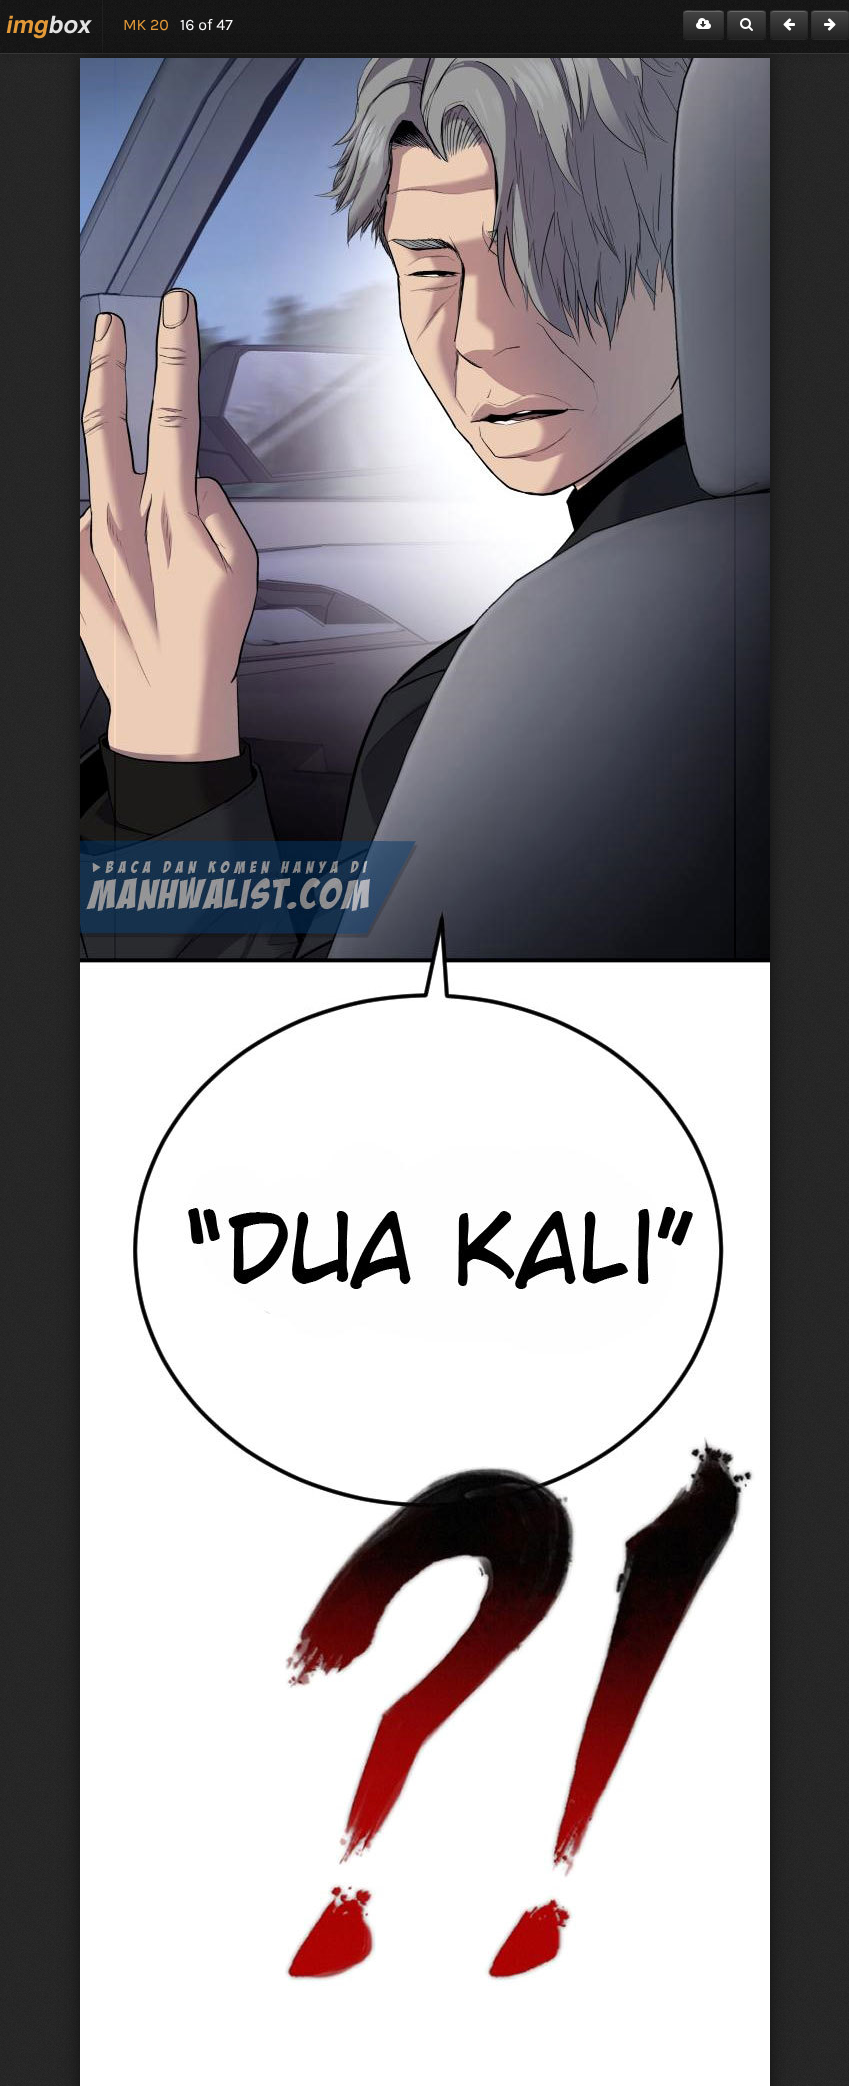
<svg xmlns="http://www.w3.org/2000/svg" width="849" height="2086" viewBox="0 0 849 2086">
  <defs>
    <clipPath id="clip1"><rect x="683" y="10" width="41" height="30" rx="4"/></clipPath>
    <linearGradient id="g1" gradientUnits="userSpaceOnUse" x1="704" y1="11" x2="704" y2="39"><stop offset="0" stop-color="#444"/><stop offset="1" stop-color="#222"/></linearGradient>
    <clipPath id="clip2"><rect x="727" y="10" width="39" height="30" rx="4"/></clipPath>
    <linearGradient id="g2" gradientUnits="userSpaceOnUse" x1="747" y1="11" x2="747" y2="39"><stop offset="0" stop-color="#444"/><stop offset="1" stop-color="#222"/></linearGradient>
    <clipPath id="clip3"><rect x="770" y="10" width="38" height="30" rx="4"/></clipPath>
    <linearGradient id="g3" gradientUnits="userSpaceOnUse" x1="789" y1="11" x2="789" y2="39"><stop offset="0" stop-color="#444"/><stop offset="1" stop-color="#222"/></linearGradient>
    <clipPath id="clip4"><rect x="811" y="10" width="38" height="30" rx="4"/></clipPath>
    <linearGradient id="g4" gradientUnits="userSpaceOnUse" x1="830" y1="11" x2="830" y2="39"><stop offset="0" stop-color="#444"/><stop offset="1" stop-color="#222"/></linearGradient>
  </defs>
  <rect width="100%" height="100%" fill="#fff"/>
  <image x="0" y="54" width="849" height="2032" href="img/1.png"/>
  <path d="M0 1h849v54H0z" fill="#0000001a" filter="blur(5px)"/>
  <image x="0" y="0" width="849" height="53" href="img/2.png"/>
  <path d="M0 53h849v1H0z" fill="#373737"/>
  <image x="6" y="15" width="86" height="24" href="img/3.png"/>
  <path d="M102 0h1v53H102z" fill="#202020"/>
  <rect x="683" y="10" width="41" height="30" rx="4" fill="#363636"/>
  <g clip-path="url(#clip1)">
    <path d="M683 11h41v28H683z" fill="url(#g1)"/>
  </g>
  <path d="M687 12H720C722 12 723 13 723 15C723 9.5 719 11 714.5 11H692.5C688 11 684 9.5 684 15C684 13 685 12 687 12Z" fill="#696969"/>
  <path d="M722.5 38.5C722 39 721 39.5 720 39.5H687C686 39.5 685 39 684.5 38.5" fill="none" stroke="#00000040"/>
  <path d="M684.5 38.5C682.5 36.5 683.5 28 683.5 25C683.5 6 682 10.5 703.5 10.5C725 10.5 723.5 6 723.5 25C723.5 28 724.5 36.5 722.5 38.5" fill="none" stroke="#0000001a"/>
  <image x="696" y="18" width="15" height="11" href="img/4.png"/>
  <rect x="727" y="10" width="39" height="30" rx="4" fill="#363636"/>
  <g clip-path="url(#clip2)">
    <path d="M727 11h39v28H727z" fill="url(#g2)"/>
  </g>
  <path d="M731 12H762C764 12 765 13 765 15C765 10 761 11 757 11H736C732 11 728 10 728 15C728 13 729 12 731 12Z" fill="#696969"/>
  <path d="M764.5 38.5C764 39 763 39.5 762 39.5H731C730 39.5 729 39 728.5 38.5" fill="none" stroke="#00000040"/>
  <path d="M728.5 38.5C728 38 727.5 37 727.5 36V14C727.5 13 728 12 728.5 11.5C729 11 730 10.5 731 10.5H762C763 10.5 764 11 764.5 11.5C765 12 765.5 13 765.5 14V36C765.5 37 765 38 764.5 38.5" fill="none" stroke="#0000001a"/>
  <image x="740" y="18" width="13" height="13" href="img/5.png"/>
  <rect x="770" y="10" width="38" height="30" rx="4" fill="#363636"/>
  <g clip-path="url(#clip3)">
    <path d="M770 11h38v28H770z" fill="url(#g3)"/>
  </g>
  <path d="M774 12H804C806 12 807 13 807 15C807 10 803 11 799 11H779C775 11 771 10 771 15C771 13 772 12 774 12Z" fill="#696969"/>
  <path d="M806.5 38.5C806 39 805 39.5 804 39.5H774C773 39.5 772 39 771.5 38.5" fill="none" stroke="#00000040"/>
  <path d="M771.5 38.5C771 38 770.5 37 770.5 36V14C770.5 13 771 12 771.5 11.5C772 11 773 10.5 774 10.5H804C805 10.5 806 11 806.5 11.5C807 12 807.5 13 807.5 14V36C807.5 37 807 38 806.5 38.5" fill="none" stroke="#0000001a"/>
  <image x="783" y="18" width="12" height="13" href="img/6.png"/>
  <rect x="811" y="10" width="38" height="30" rx="4" fill="#363636"/>
  <g clip-path="url(#clip4)">
    <path d="M811 11h38v28H811z" fill="url(#g4)"/>
  </g>
  <path d="M815 12H845C847 12 848 13 848 15C848 10 844 11 840 11H820C816 11 812 10 812 15C812 13 813 12 815 12Z" fill="#696969"/>
  <path d="M847.5 38.5C847 39 846 39.5 845 39.5H815C814 39.5 813 39 812.5 38.5" fill="none" stroke="#00000040"/>
  <path d="M812.5 38.5C812 38 811.5 37 811.5 36V14C811.5 13 812 12 812.5 11.5C813 11 814 10.5 815 10.5H845C846 10.5 847 11 847.5 11.5C848 12 848.5 13 848.5 14V36C848.5 37 848 38 847.5 38.5" fill="none" stroke="#0000001a"/>
  <image x="824" y="18" width="12" height="13" href="img/7.png"/>
  <path d="M80 58h690v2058H80z" fill="#111" filter="blur(10px)"/>
  <image x="80" y="58" width="690" height="2028" href="img/8.png"/>
  <text x="123" y="30" font-family="Karla" font-size="16" fill="#e39938">MK 20</text>
  <text x="180" y="30" font-family="Karla" font-size="16" fill="#fdfeff">16 of 47</text>
</svg>
